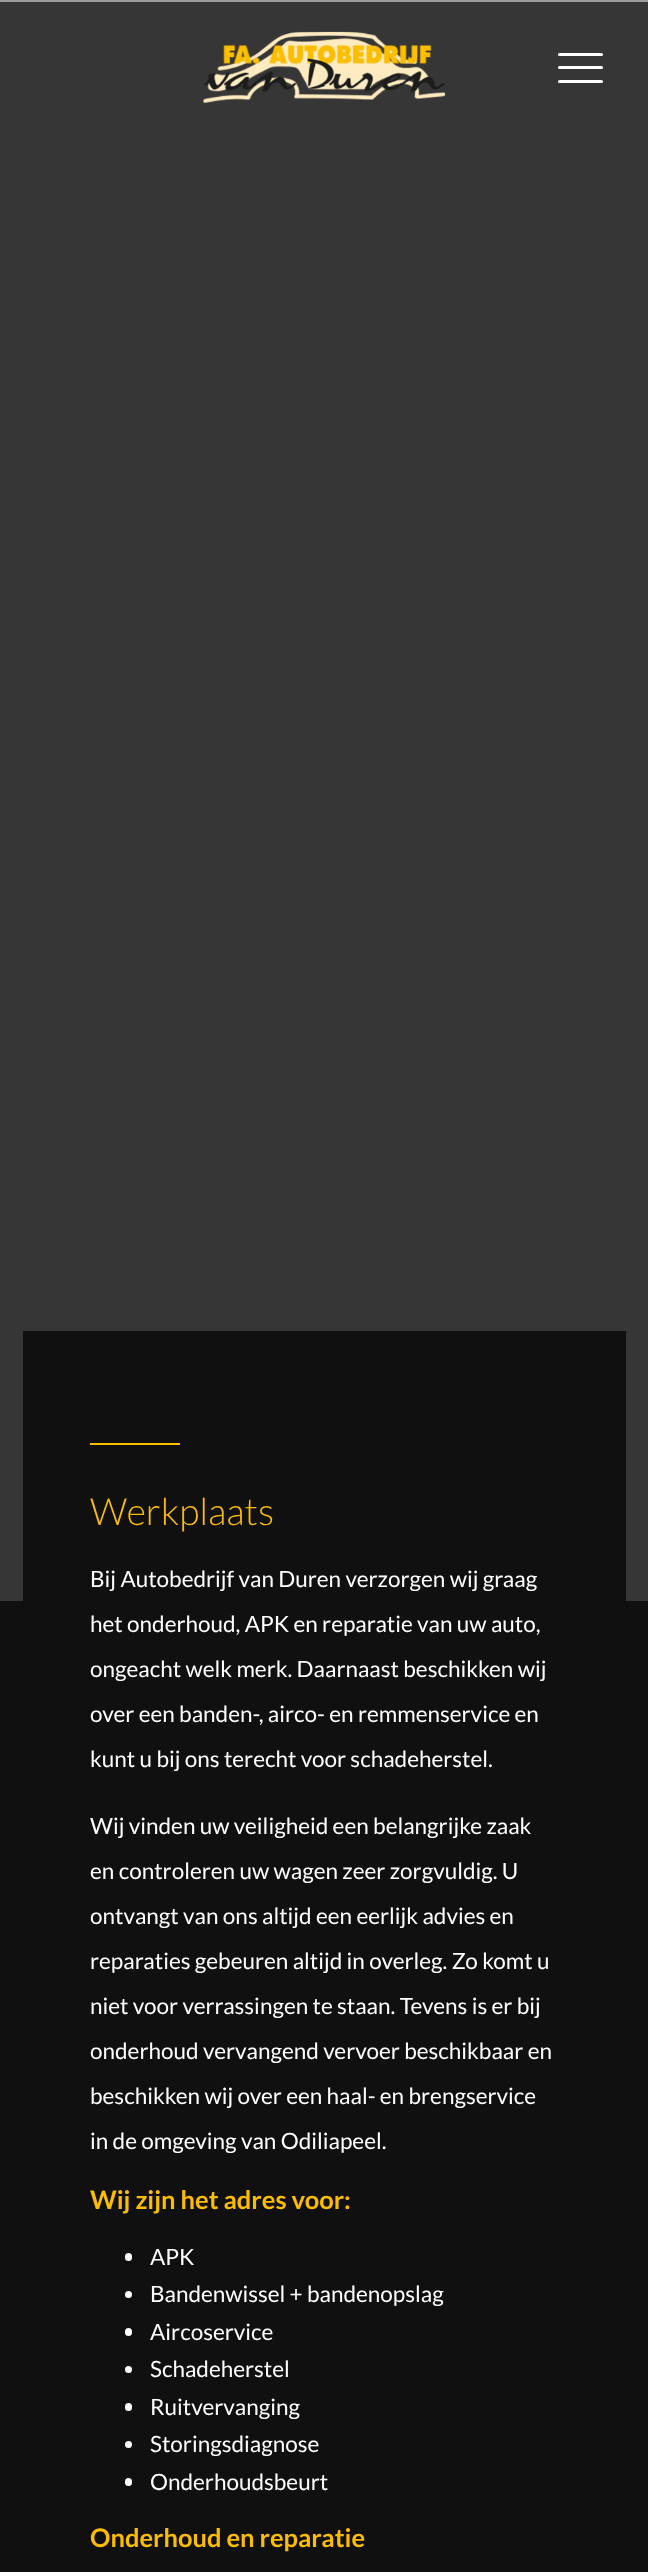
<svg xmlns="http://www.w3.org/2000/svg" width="648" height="2572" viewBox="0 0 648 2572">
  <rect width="100%" height="100%" fill="#101010"/>
  <path d="M0 0h648v2H0z" fill="#9b9b9b"/>
  <path d="M0 2h648v1599H0z" fill="#363636"/>
  <image x="203" y="31" width="243" height="73" href="img/1.png"/>
  <rect x="558" y="66" width="45" height="3" rx="1.5" fill="#fff"/>
  <rect x="558" y="53" width="45" height="3" rx="1.5" fill="#fff"/>
  <rect x="558" y="80" width="45" height="3" rx="1.5" fill="#fff"/>
  <path d="M23 1331h603v270H23z" fill="#101010"/>
  <path d="M90 1443h90v2H90z" fill="#fcbd00"/>
  <rect x="125" y="2253" width="7" height="8" rx="3.5" fill="#fff"/>
  <circle cx="128.5" cy="2294.5" r="3.5" fill="#fff"/>
  <rect x="125" y="2328" width="7" height="8" rx="3.5" fill="#fff"/>
  <circle cx="128.5" cy="2369.5" r="3.5" fill="#fff"/>
  <rect x="125" y="2403" width="7" height="8" rx="3.5" fill="#fff"/>
  <circle cx="128.5" cy="2444.5" r="3.5" fill="#fff"/>
  <rect x="125" y="2478" width="7" height="8" rx="3.5" fill="#fff"/>
  <text x="90" y="1525" font-family="Lato" font-size="37.5" font-weight="300" fill="#fcbd00">Werkplaats</text>
  <g font-family="Lato" font-size="22.5" fill="#fff">
    <text x="90" y="1587">Bij Autobedrijf van Duren verzorgen wij graag</text>
    <text x="90" y="1632">het onderhoud, APK en reparatie van uw auto,</text>
    <text x="90" y="1677">ongeacht welk merk. Daarnaast beschikken wij</text>
    <text x="90" y="1722">over een banden-, airco- en remmenservice en</text>
    <text x="90" y="1767">kunt u bij ons terecht voor schadeherstel.</text>
    <text x="90" y="1834">Wij vinden uw veiligheid een belangrijke zaak</text>
    <text x="90" y="1879">en controleren uw wagen zeer zorgvuldig. U</text>
    <text x="90" y="1924">ontvangt van ons altijd een eerlijk advies en</text>
    <text x="90" y="1969">reparaties gebeuren altijd in overleg. Zo komt u</text>
    <text x="90" y="2014">niet voor verrassingen te staan. Tevens is er bij</text>
    <text x="90" y="2059">onderhoud vervangend vervoer beschikbaar en</text>
    <text x="90" y="2104">beschikken wij over een haal- en brengservice</text>
    <text x="90" y="2149">in de omgeving van Odiliapeel.</text>
  </g>
  <text x="90" y="2209" font-family="Lato" font-size="25.5" font-weight="bold" fill="#fcbd00">Wij zijn het adres voor:</text>
  <g font-family="Lato" font-size="22.5" fill="#fff">
    <text x="150" y="2265">APK</text>
    <text x="150" y="2302">Bandenwissel + bandenopslag</text>
    <text x="150" y="2340">Aircoservice</text>
    <text x="150" y="2377">Schadeherstel</text>
    <text x="150" y="2415">Ruitvervanging</text>
    <text x="150" y="2452">Storingsdiagnose</text>
    <text x="150" y="2490">Onderhoudsbeurt</text>
  </g>
  <text x="90" y="2547" font-family="Lato" font-size="25.5" font-weight="bold" fill="#fcbd00">Onderhoud en reparatie</text>
</svg>
